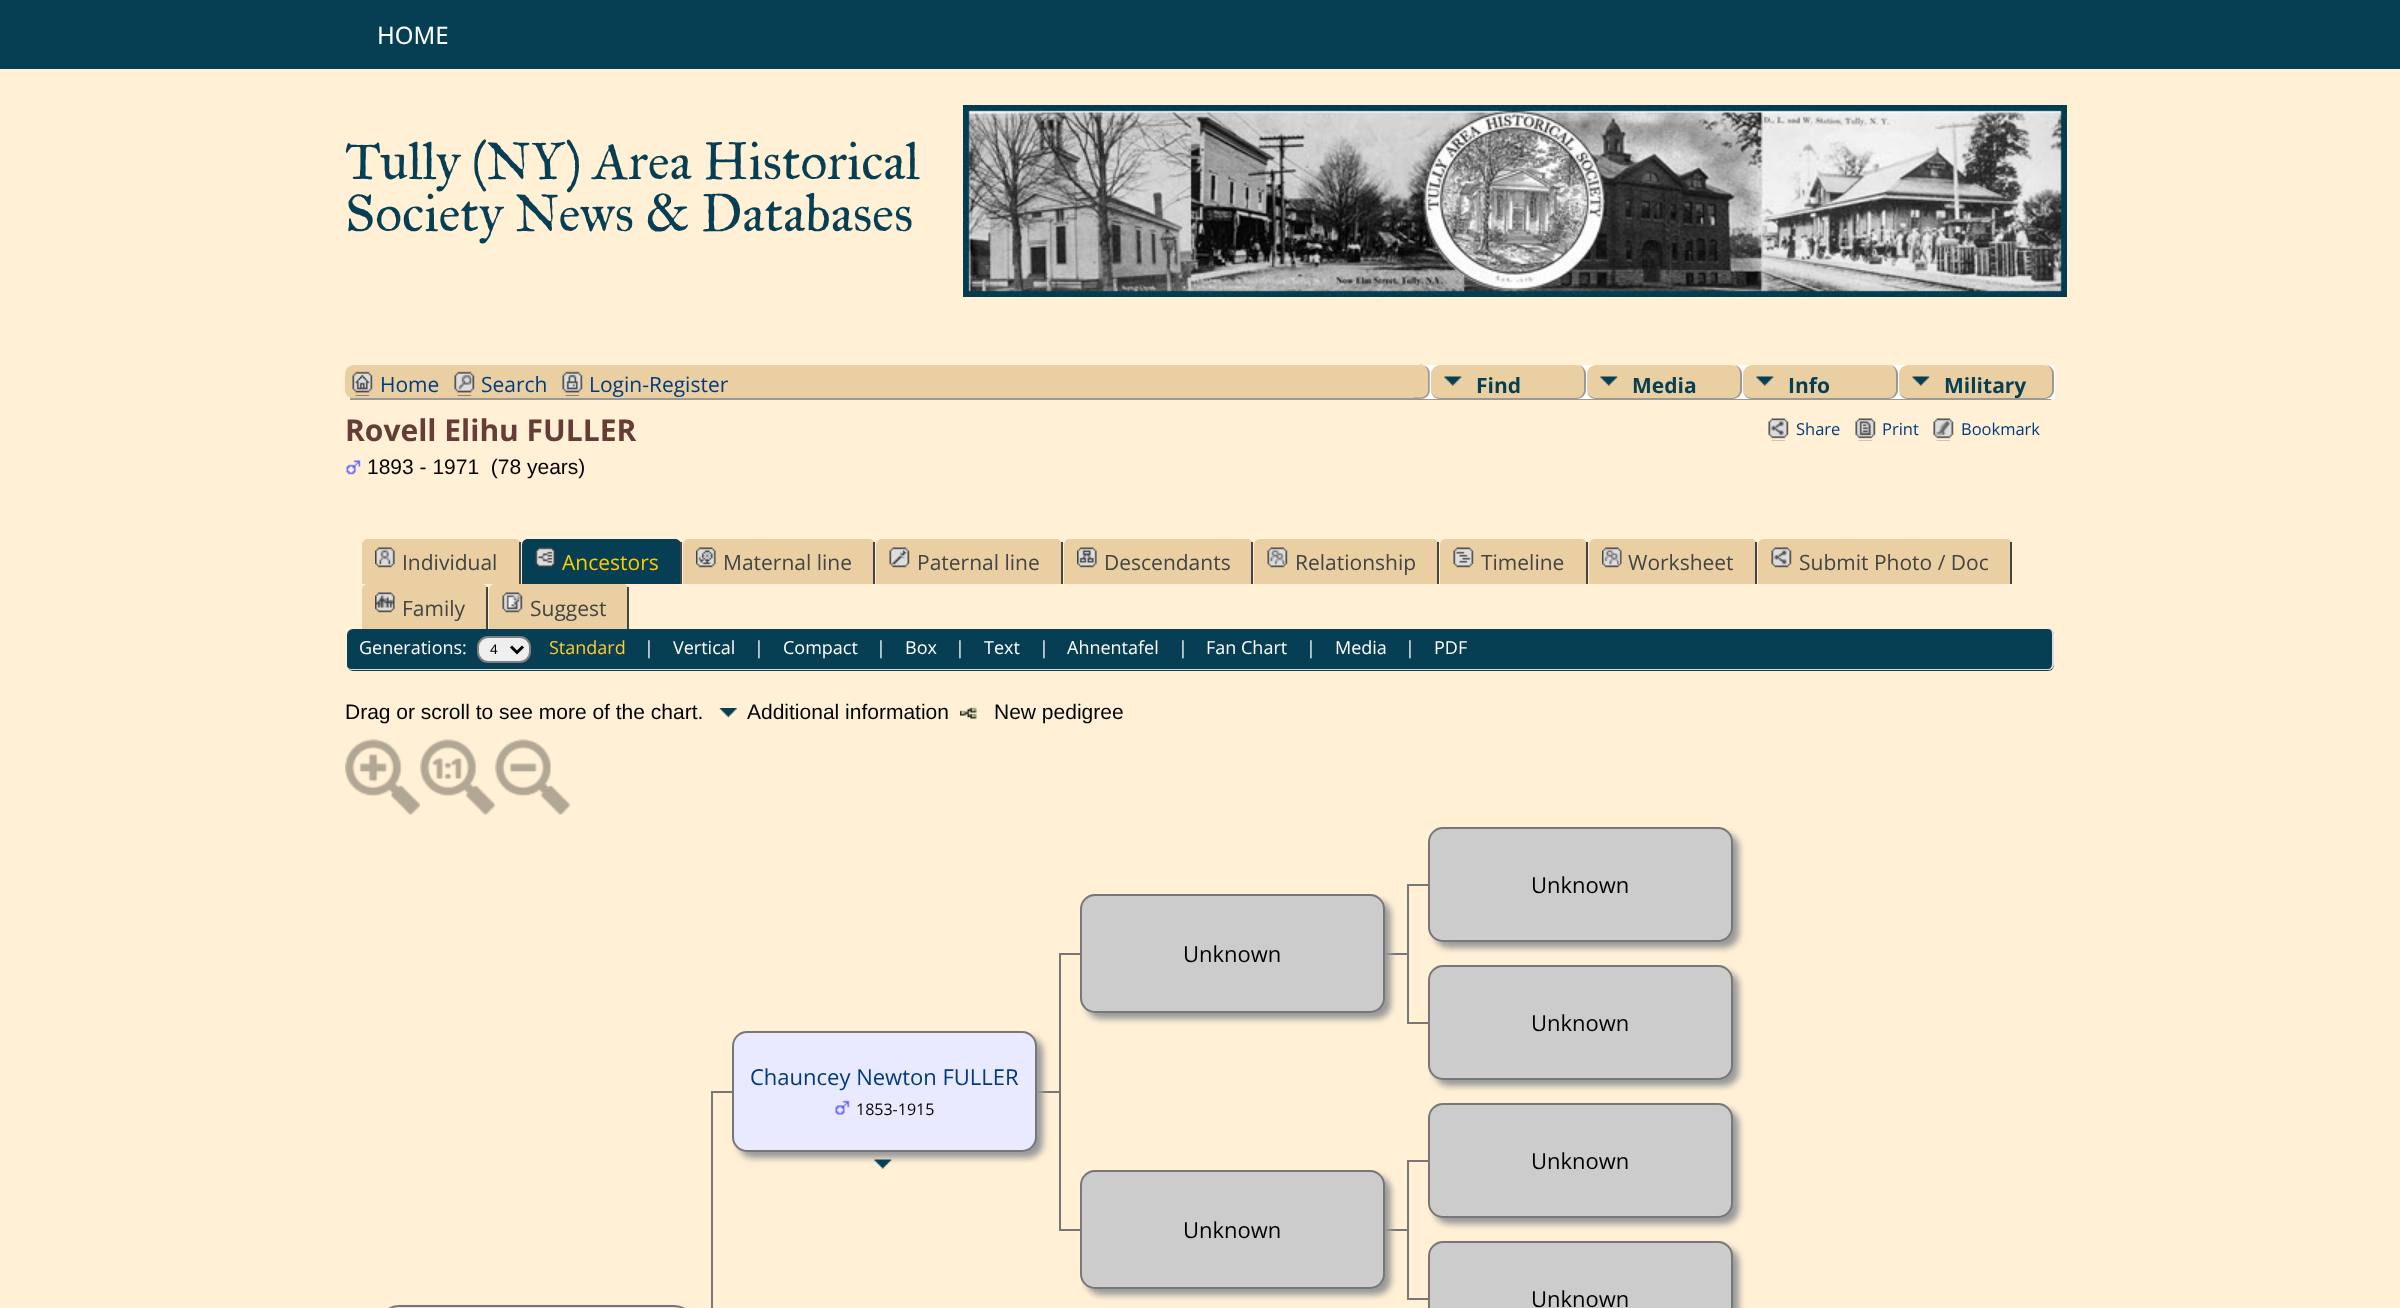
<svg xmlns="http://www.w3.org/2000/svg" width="2400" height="1308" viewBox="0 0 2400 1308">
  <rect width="100%" height="100%" fill="#fff0d6"/>
  <path d="M0 0h2400v69H0z" fill="#063e53"/>
  <image x="963" y="105" width="1104" height="192" href="img/1.png"/>
  <rect x="345" y="365" width="1710" height="34" rx="9" fill="#e9cfa2"/>
  <path d="M350 398h1701v2H350z" fill="#999"/>
  <image x="352" y="371" width="21" height="25" href="img/2.png"/>
  <image x="454" y="371" width="21" height="25" href="img/3.png"/>
  <image x="562" y="371" width="21" height="25" href="img/4.png"/>
  <path d="M1421 365h634v34H1421z" fill="#fff"/>
  <path d="M1413 365H1421C1426 365 1430 369 1430 374V390C1430 395 1426 399 1421 399H1413Z" fill="#e9cfa2"/>
  <path d="M1413 364.5C1419.5 364.5 1427.5 363.5 1429.5 371.5V392C1427.5 400 1419.5 399 1413 399ZM1413 364.5H1422C1429.5 366.5 1428 376 1428 382V391.5C1426.5 399 1418.5 397.5 1413 397.5Z" fill="#999" fill-rule="evenodd"/>
  <rect x="1431" y="365" width="155" height="34" rx="9" fill="#e9cfa2"/>
  <image x="1444" y="376" width="18" height="10" href="img/5.png"/>
  <path d="M1440 364H1576C1581 364 1586 369 1586 374V390C1586 395 1581 399 1576 399H1440C1435 399 1431 395 1431 390V374C1431 369 1435 364 1440 364ZM1440 364H1576C1581 364 1584 369 1584 374V390C1584 394 1581 398 1576 398H1440C1435 398 1431 394 1431 390V374C1431 369 1435 364 1440 364Z" fill="#999" fill-rule="evenodd"/>
  <rect x="1587" y="365" width="155" height="34" rx="9" fill="#e9cfa2"/>
  <image x="1600" y="376" width="18" height="10" href="img/5.png"/>
  <path d="M1596 364H1732C1737 364 1742 369 1742 374V390C1742 395 1737 399 1732 399H1596C1591 399 1587 395 1587 390V374C1587 369 1591 364 1596 364ZM1596 364H1732C1737 364 1740 369 1740 374V390C1740 394 1737 398 1732 398H1596C1591 398 1587 394 1587 390V374C1587 369 1591 364 1596 364Z" fill="#999" fill-rule="evenodd"/>
  <rect x="1743" y="365" width="155" height="34" rx="9" fill="#e9cfa2"/>
  <image x="1756" y="376" width="18" height="10" href="img/5.png"/>
  <path d="M1752 364H1888C1893 364 1898 369 1898 374V390C1898 395 1893 399 1888 399H1752C1747 399 1743 395 1743 390V374C1743 369 1747 364 1752 364ZM1752 364H1888C1893 364 1896 369 1896 374V390C1896 394 1893 398 1888 398H1752C1747 398 1743 394 1743 390V374C1743 369 1747 364 1752 364Z" fill="#999" fill-rule="evenodd"/>
  <rect x="1899" y="365" width="155" height="34" rx="9" fill="#e9cfa2"/>
  <image x="1912" y="376" width="18" height="10" href="img/6.png"/>
  <path d="M1908 364H2044C2049 364 2054 369 2054 374V390C2054 395 2049 399 2044 399H1908C1903 399 1899 395 1899 390V374C1899 369 1903 364 1908 364ZM1908 364H2044C2049 364 2052 369 2052 374V390C2052 394 2049 398 2044 398H1908C1903 398 1899 394 1899 390V374C1899 369 1903 364 1908 364Z" fill="#999" fill-rule="evenodd"/>
  <image x="1768" y="418" width="21" height="23" href="img/7.png"/>
  <image x="1855" y="418" width="21" height="23" href="img/8.png"/>
  <image x="1933" y="418" width="21" height="23" href="img/9.png"/>
  <image x="346" y="460" width="15" height="15" href="img/10.png"/>
  <path d="M368 539H515C518.5 539 521 541.5 521 545V584H362V545C362 541.5 364.5 539 368 539Z" fill="#e9cfa2"/>
  <path d="M519 542h2v42H519z" fill="#444"/>
  <image x="375" y="547" width="20" height="21" href="img/11.png"/>
  <path d="M528 539H675C678.5 539 681 541.5 681 545V584H522V545C522 541.5 524.5 539 528 539Z" fill="#063e53"/>
  <path d="M680 542h2v42H680z" fill="#444"/>
  <image x="535" y="547" width="21" height="21" href="img/12.png"/>
  <path d="M689 539H869C872.5 539 875 541.5 875 545V584H683V545C683 541.5 685.5 539 689 539Z" fill="#e9cfa2"/>
  <path d="M873 542h2v42H873z" fill="#444"/>
  <image x="696" y="547" width="20" height="21" href="img/13.png"/>
  <path d="M882 539H1056C1059.5 539 1062 541.5 1062 545V584H876V545C876 541.5 878.5 539 882 539Z" fill="#e9cfa2"/>
  <path d="M1061 542h2v42H1061z" fill="#444"/>
  <image x="889" y="547" width="21" height="21" href="img/14.png"/>
  <path d="M1070 539H1247C1250.5 539 1253 541.5 1253 545V584H1064V545C1064 541.5 1066.5 539 1070 539Z" fill="#e9cfa2"/>
  <path d="M1251 542h2v42H1251z" fill="#444"/>
  <image x="1077" y="547" width="20" height="21" href="img/15.png"/>
  <path d="M1260 539H1433C1436.5 539 1439 541.5 1439 545V584H1254V545C1254 541.5 1256.5 539 1260 539Z" fill="#e9cfa2"/>
  <path d="M1437 542h2v42H1437z" fill="#444"/>
  <image x="1267" y="547" width="21" height="21" href="img/16.png"/>
  <path d="M1446 539H1581C1584.5 539 1587 541.5 1587 545V584H1440V545C1440 541.5 1442.5 539 1446 539Z" fill="#e9cfa2"/>
  <path d="M1586 542h2v42H1586z" fill="#444"/>
  <image x="1453" y="547" width="21" height="21" href="img/17.png"/>
  <path d="M1595 539H1751C1754.5 539 1757 541.5 1757 545V584H1589V545C1589 541.5 1591.5 539 1595 539Z" fill="#e9cfa2"/>
  <path d="M1755 542h2v42H1755z" fill="#444"/>
  <image x="1602" y="547" width="20" height="21" href="img/18.png"/>
  <path d="M1764 539H2006C2009.5 539 2012 541.5 2012 545V584H1758V545C1758 541.5 1760.5 539 1764 539Z" fill="#e9cfa2"/>
  <path d="M2010 542h2v42H2010z" fill="#444"/>
  <image x="1771" y="547" width="21" height="21" href="img/19.png"/>
  <path d="M368 584H482C485.5 584 488 586.5 488 590V629H362V590C362 586.5 364.5 584 368 584Z" fill="#e9cfa2"/>
  <path d="M486 587h2v42H486z" fill="#444"/>
  <image x="375" y="592" width="20" height="21" href="img/20.png"/>
  <path d="M495 584H623C626.5 584 629 586.5 629 590V629H489V590C489 586.5 491.5 584 495 584Z" fill="#e9cfa2"/>
  <path d="M627 587h2v42H627z" fill="#444"/>
  <image x="502" y="592" width="21" height="21" href="img/21.png"/>
  <rect x="347" y="629" width="1707" height="42" rx="6" fill="#063e53"/>
  <path d="M352 628H2048C2051 628 2054 631 2054 634V664C2054 668 2051 670 2048 670H352C349 670 346 668 346 664V634C346 631 349 628 352 628ZM352 628H2048C2050 628 2052 631 2052 634V664C2052 667 2050 669 2048 669H352C349 669 346 667 346 664V634C346 631 349 628 352 628Z" fill="#ddd" fill-rule="evenodd"/>
  <rect x="478" y="637" width="52" height="25" rx="10" fill="#efefef" stroke="#808080" stroke-width="2"/>
  <path d="M511 646.5L517 652.5L523 646.5" fill="none" stroke="#000" stroke-width="3"/>
  <image x="719" y="708" width="18" height="10" href="img/22.png"/>
  <image x="960" y="707" width="17" height="12" href="img/23.png"/>
  <image x="345" y="739" width="75" height="76" href="img/24.png"/>
  <image x="420" y="739" width="75" height="76" href="img/25.png"/>
  <image x="495" y="739" width="75" height="76" href="img/26.png"/>
  <path d="M1407 884h26v2H1407z" fill="#777"/>
  <rect x="1434" y="833" width="305" height="115" rx="15" fill="#999" filter="blur(3px)"/>
  <rect x="1429" y="828" width="303" height="113" rx="14" fill="#ccc" stroke="#777" stroke-width="2"/>
  <path d="M1059 953h26v2H1059z" fill="#777"/>
  <path d="M1383 953h24v2H1383z" fill="#777"/>
  <rect x="1086" y="900" width="305" height="119" rx="15" fill="#999" filter="blur(3px)"/>
  <rect x="1081" y="895" width="303" height="117" rx="14" fill="#ccc" stroke="#777" stroke-width="2"/>
  <path d="M1407 884h2v70H1407z" fill="#777"/>
  <path d="M1059 953h2v139H1059z" fill="#777"/>
  <path d="M1407 1022h26v2H1407z" fill="#777"/>
  <path d="M1407 954h2v69H1407z" fill="#777"/>
  <rect x="1434" y="971" width="305" height="115" rx="15" fill="#999" filter="blur(3px)"/>
  <rect x="1429" y="966" width="303" height="113" rx="14" fill="#ccc" stroke="#777" stroke-width="2"/>
  <path d="M711 1091h26v2H711z" fill="#777"/>
  <path d="M1035 1091h24v2H1035z" fill="#777"/>
  <rect x="738" y="1037" width="305" height="121" rx="15" fill="#999" filter="blur(3px)"/>
  <rect x="733" y="1032" width="303" height="119" rx="14" fill="#e9e9ff" stroke="#777" stroke-width="2"/>
  <image x="835" y="1100" width="15" height="15" href="img/27.png"/>
  <image x="874" y="1159" width="18" height="10" href="img/28.png"/>
  <path d="M711 1091h2v217H711z" fill="#777"/>
  <path d="M1059 1229h26v2H1059z" fill="#777"/>
  <path d="M1059 1092h2v138H1059z" fill="#777"/>
  <path d="M1407 1160h26v2H1407z" fill="#777"/>
  <rect x="1434" y="1109" width="305" height="115" rx="15" fill="#999" filter="blur(3px)"/>
  <rect x="1429" y="1104" width="303" height="113" rx="14" fill="#ccc" stroke="#777" stroke-width="2"/>
  <path d="M1383 1229h24v2H1383z" fill="#777"/>
  <rect x="1086" y="1176" width="305" height="119" rx="15" fill="#999" filter="blur(3px)"/>
  <rect x="1081" y="1171" width="303" height="117" rx="14" fill="#ccc" stroke="#777" stroke-width="2"/>
  <path d="M1407 1160h2v70H1407z" fill="#777"/>
  <path d="M1407 1298h26v2H1407z" fill="#777"/>
  <path d="M1407 1230h2v69H1407z" fill="#777"/>
  <rect x="1434" y="1247" width="305" height="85" rx="15" fill="#999" filter="blur(3px)"/>
  <rect x="1429" y="1242" width="303" height="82" rx="14" fill="#ccc" stroke="#777" stroke-width="2"/>
  <rect x="390" y="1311" width="305" height="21" rx="15" fill="#999" filter="blur(3px)"/>
  <rect x="385" y="1306" width="303" height="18" rx="14" fill="#e0e0f7" stroke="#777" stroke-width="2"/>
  <text x="377" y="44" font-family="'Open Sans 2'" font-size="24" fill="#fff">HOME</text>
  <g font-family="IM FELL Great Primer" font-size="52.5" fill="#063e53">
    <text x="345" y="179">Tully (NY) Area Historical</text>
    <text x="345" y="231">Society News &amp; Databases</text>
  </g>
  <g font-family="Open Sans" font-size="21" fill="#003b7f">
    <text x="380" y="392">Home</text>
    <text x="481" y="392">Search</text>
    <text x="589" y="392">Login-Register</text>
  </g>
  <g font-family="Open Sans" font-size="21" font-weight="bold" fill="#063e53">
    <text x="1476" y="393">Find</text>
    <text x="1632" y="393">Media</text>
    <text x="1788" y="393">Info</text>
    <text x="1944" y="393">Military</text>
  </g>
  <text x="345" y="441" font-family="Open Sans" font-size="30" font-weight="bold" fill="#663c36">Rovell Elihu FULLER</text>
  <g font-family="Open Sans" font-size="16.5" fill="#003b7f">
    <text x="1796" y="435">Share</text>
    <text x="1882" y="435">Print</text>
    <text x="1961" y="435">Bookmark</text>
  </g>
  <text x="367" y="474" font-family="Liberation Sans" font-size="21" fill="#000" xml:space="preserve">1893 - 1971  (78 years)</text>
  <text x="402" y="570" font-family="Open Sans" font-size="21" fill="#444">Individual</text>
  <text x="562" y="570" font-family="Open Sans" font-size="21" fill="#fc0">Ancestors</text>
  <g font-family="Open Sans" font-size="21" fill="#444">
    <text x="723" y="570">Maternal line</text>
    <text x="917" y="570">Paternal line</text>
    <text x="1104" y="570">Descendants</text>
    <text x="1295" y="570">Relationship</text>
    <text x="1481" y="570">Timeline</text>
    <text x="1628" y="570">Worksheet</text>
    <text x="1799" y="570">Submit Photo / Doc</text>
    <text x="402" y="616">Family</text>
    <text x="530" y="616">Suggest</text>
  </g>
  <text x="359" y="654" font-family="Open Sans" font-size="18" fill="#fff">Generations:</text>
  <text x="490" y="654" font-family="Liberation Sans" font-size="14" fill="#000">4</text>
  <text x="549" y="654" font-family="Open Sans" font-size="18" fill="#fc3">Standard</text>
  <g font-family="Open Sans" font-size="18" fill="#fff">
    <text x="644" y="654">|</text>
    <text x="673" y="654">Vertical</text>
    <text x="754" y="654">|</text>
    <text x="783" y="654">Compact</text>
    <text x="876" y="654">|</text>
    <text x="905" y="654">Box</text>
    <text x="955" y="654">|</text>
    <text x="984" y="654">Text</text>
    <text x="1039" y="654">|</text>
    <text x="1067" y="654">Ahnentafel</text>
    <text x="1178" y="654">|</text>
    <text x="1206" y="654">Fan Chart</text>
    <text x="1306" y="654">|</text>
    <text x="1335" y="654">Media</text>
    <text x="1405" y="654">|</text>
    <text x="1434" y="654">PDF</text>
  </g>
  <g font-family="Liberation Sans" font-size="21" fill="#000">
    <text x="345" y="719">Drag or scroll to see more of the chart.</text>
    <text x="747" y="719">Additional information</text>
    <text x="994" y="719">New pedigree</text>
  </g>
  <g font-family="Open Sans" font-size="22" fill="#000">
    <text x="1531" y="893">Unknown</text>
    <text x="1183" y="962">Unknown</text>
    <text x="1531" y="1031">Unknown</text>
  </g>
  <text x="750" y="1085" font-family="Open Sans" font-size="22" fill="#003b7f">Chauncey Newton FULLER</text>
  <text x="856" y="1115" font-family="Open Sans" font-size="16" fill="#000">1853-1915</text>
  <g font-family="Open Sans" font-size="22" fill="#000">
    <text x="1531" y="1169">Unknown</text>
    <text x="1183" y="1238">Unknown</text>
    <text x="1531" y="1307">Unknown</text>
  </g>
</svg>
